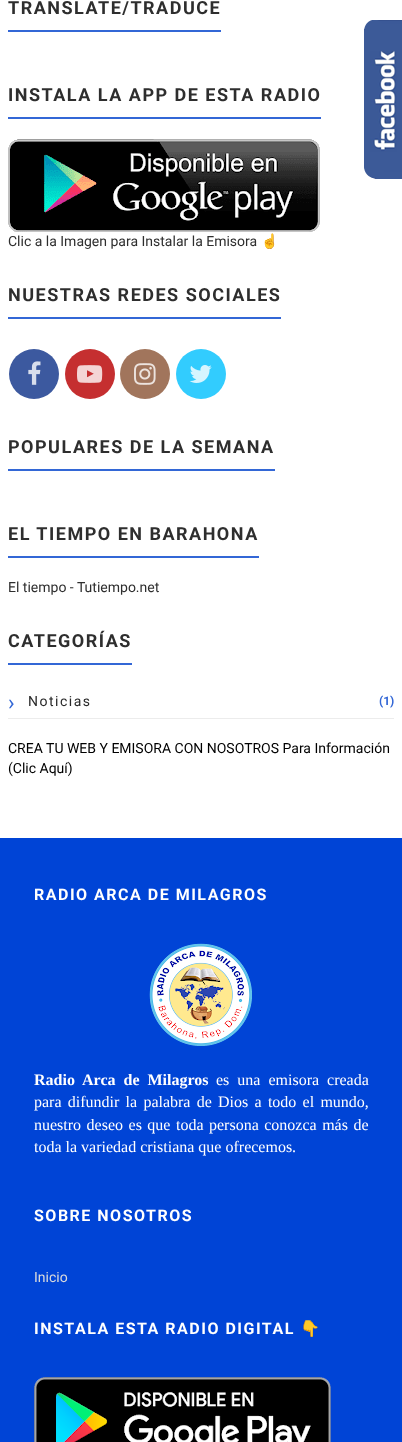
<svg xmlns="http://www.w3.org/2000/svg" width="402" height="1442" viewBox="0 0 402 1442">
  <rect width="100%" height="100%" fill="#fff"/>
  <path d="M8 30h213v2H8z" fill="#3367d6"/>
  <path d="M8 117h313v2H8z" fill="#3367d6"/>
  <image x="8" y="139" width="312" height="93" href="img/1.png"/>
  <image x="364" y="20" width="38" height="159" href="img/2.png"/>
  <path d="M8 317h273v2H8z" fill="#3367d6"/>
  <circle cx="34" cy="374" r="25" fill="#3c599f"/>
  <image x="28" y="361" width="13" height="24" href="img/3.png"/>
  <circle cx="90" cy="374" r="25" fill="#c52f30"/>
  <image x="77" y="365" width="26" height="18" href="img/4.png"/>
  <circle cx="145" cy="374" r="25" fill="#a1755c"/>
  <image x="134" y="363" width="22" height="22" href="img/5.png"/>
  <circle cx="201" cy="374" r="25" fill="#32ccfe"/>
  <image x="189" y="365" width="23" height="18" href="img/6.png"/>
  <path d="M8 469h267v2H8z" fill="#3367d6"/>
  <path d="M8 556h251v2H8z" fill="#3367d6"/>
  <path d="M8 663h124v2H8z" fill="#3367d6"/>
  <path d="M8 718h386v1H8z" fill="#ececec"/>
  <path d="M0 838h402v604H0z" fill="#0044d6"/>
  <image x="149" y="943" width="103" height="103" href="img/7.png"/>
  <image x="34" y="1377" width="297" height="65" href="img/8.png"/>
  <g font-family="Roboto" font-size="18" font-weight="bold" letter-spacing="1.5" fill="#2e2e2e">
    <text x="8" y="14">TRANSLATE/TRADUCE</text>
    <text x="8" y="101">INSTALA LA APP DE ESTA RADIO</text>
  </g>
  <text x="8" y="246" font-family="Roboto" font-size="14" fill="#2e2e2e">Clic a la Imagen para Instalar la Emisora</text>
  <text x="261" y="246" font-family="Noto Color Emoji" font-size="14" fill="#2e2e2e">☝</text>
  <g font-family="Roboto" font-size="18" font-weight="bold" letter-spacing="1.5" fill="#2e2e2e">
    <text x="8" y="301">NUESTRAS REDES SOCIALES</text>
    <text x="8" y="453">POPULARES DE LA SEMANA</text>
    <text x="8" y="540">EL TIEMPO EN BARAHONA</text>
  </g>
  <text x="8" y="592" font-family="Roboto" font-size="14" fill="#2e2e2e">El tiempo - Tutiempo.net</text>
  <text x="8" y="647" font-family="Roboto" font-size="18" font-weight="bold" letter-spacing="1.5" fill="#2e2e2e">CATEGORÍAS</text>
  <text x="8" y="710" font-family="Roboto" font-size="22" letter-spacing="1.5" fill="#3367d6">›</text>
  <text x="28" y="706" font-family="Roboto" font-size="14" letter-spacing="1.5" fill="#282828">Noticias</text>
  <text x="379" y="705" font-family="Roboto" font-size="12" font-weight="bold" fill="#3367d6">(1)</text>
  <g font-family="Roboto" font-size="14" fill="#000">
    <text x="8" y="753">CREA TU WEB Y EMISORA CON NOSOTROS Para Información</text>
    <text x="8" y="773">(Clic Aquí)</text>
  </g>
  <text x="34" y="900" font-family="Roboto" font-size="16" font-weight="bold" letter-spacing="1.5" fill="#fff">RADIO ARCA DE MILAGROS</text>
  <text x="34" y="1085" word-spacing="4" font-family="Liberation Serif" font-size="16" font-weight="bold" fill="#fff">Radio Arca de Milagros</text>
  <g font-family="Liberation Serif" font-size="16" fill="#fff">
    <text x="216" y="1085" word-spacing="4">es una emisora creada</text>
    <text x="34" y="1107" word-spacing="2.25">para difundir la palabra de Dios a todo el mundo,</text>
    <text x="34" y="1130" word-spacing="1.5">nuestro deseo es que toda persona conozca más de</text>
    <text x="34" y="1152">toda la variedad cristiana que ofrecemos.</text>
  </g>
  <text x="34" y="1221" font-family="Roboto" font-size="16" font-weight="bold" letter-spacing="1.5" fill="#fff">SOBRE NOSOTROS</text>
  <text x="34" y="1282" font-family="Roboto" font-size="14" fill="#dbdbdb">Inicio</text>
  <text x="34" y="1334" font-family="Roboto" font-size="16" font-weight="bold" letter-spacing="1.5" fill="#fff">INSTALA ESTA RADIO DIGITAL</text>
  <text x="300" y="1334" font-family="Noto Color Emoji" font-size="16" font-weight="bold" letter-spacing="1.5" fill="#fff">👇</text>
</svg>
